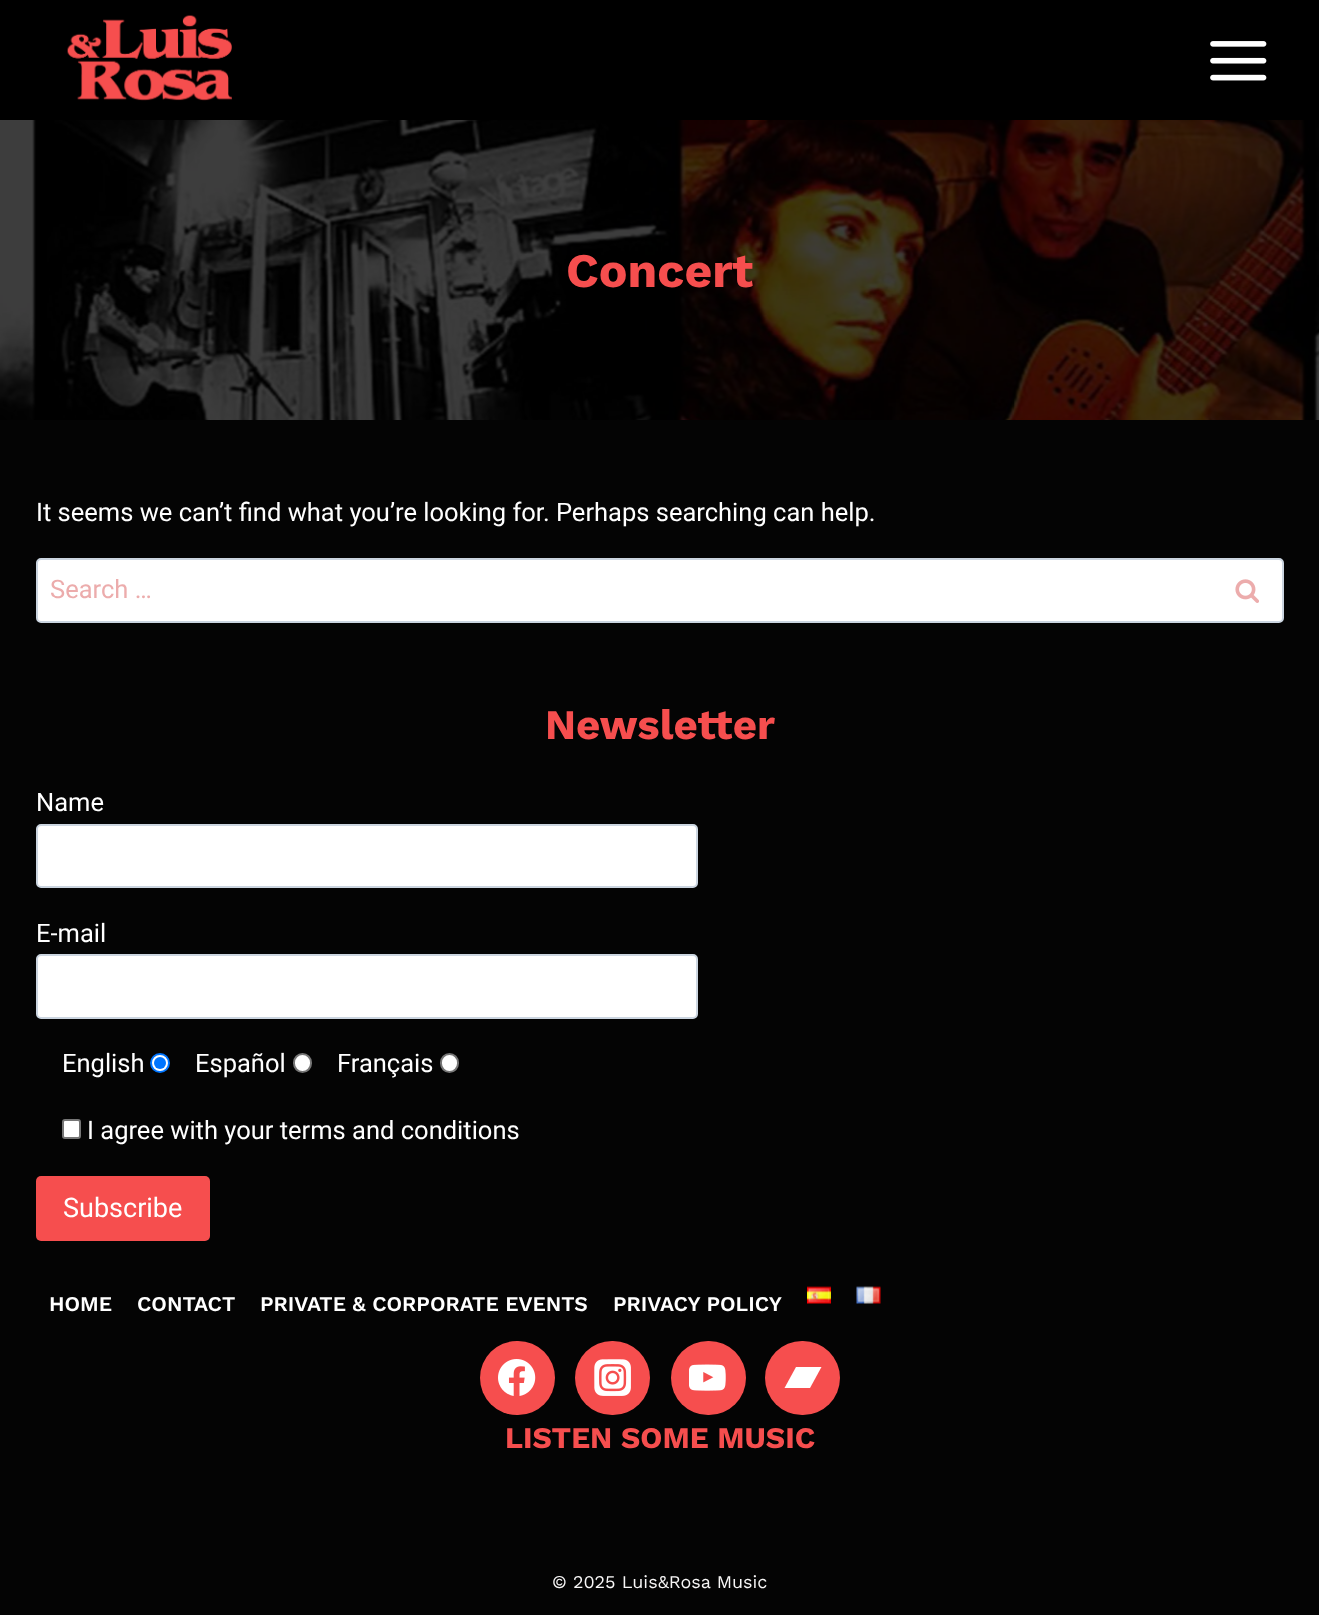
<svg xmlns="http://www.w3.org/2000/svg" width="1319" height="1615" viewBox="0 0 1319 1615">
  <rect width="100%" height="100%" fill="#040404"/>
  <path d="M0 0h1319v120H0z" fill="#000"/>
  <image x="67" y="15" width="165" height="86" href="img/1.png"/>
  <image x="1210" y="41" width="57" height="40" href="img/2.png"/>
  <image x="0" y="120" width="1319" height="300" href="img/3.png"/>
  <rect x="37" y="559" width="1246" height="63" rx="4" fill="#fff" stroke="#cbd5e0" stroke-width="2"/>
  <image x="1235" y="579" width="24" height="24" href="img/4.png"/>
  <rect x="37" y="825" width="660" height="62" rx="4" fill="#fff" stroke="#cbd5e0" stroke-width="2"/>
  <rect x="37" y="955" width="660" height="63" rx="4" fill="#fff" stroke="#cbd5e0" stroke-width="2"/>
  <circle cx="160" cy="1063" r="9" fill="#fff" stroke="#0075ff" stroke-width="2"/>
  <circle cx="160" cy="1063" r="6" fill="#0075ff"/>
  <rect x="294" y="1054" width="17" height="18" rx="8.5" fill="#fff" stroke="#767676" stroke-width="2"/>
  <rect x="441" y="1054" width="17" height="18" rx="8.5" fill="#fff" stroke="#767676" stroke-width="2"/>
  <rect x="63" y="1120" width="17" height="18" rx="2" fill="#fff" stroke="#767676" stroke-width="2"/>
  <rect x="36" y="1176" width="174" height="65" rx="5" fill="#f64e4e"/>
  <image x="807" y="1286" width="24" height="18" href="img/5.png"/>
  <image x="856" y="1286" width="25" height="18" href="img/6.png"/>
  <rect x="480" y="1341" width="75" height="74" rx="37" fill="#f64e4e"/>
  <image x="498" y="1359" width="38" height="37" href="img/7.png"/>
  <rect x="575" y="1341" width="75" height="74" rx="37" fill="#f64e4e"/>
  <image x="594" y="1359" width="37" height="37" href="img/8.png"/>
  <rect x="671" y="1341" width="75" height="74" rx="37" fill="#f64e4e"/>
  <image x="689" y="1364" width="37" height="27" href="img/9.png"/>
  <rect x="765" y="1341" width="75" height="74" rx="37" fill="#f64e4e"/>
  <path d="M784.5 1388L796 1367H821.5L810 1388Z" fill="#fff"/>
  <text x="566" y="287" font-family="Work Sans" font-size="48" font-weight="bold" fill="#f64e4e">Concert</text>
  <text x="36" y="521" font-family="Roboto" font-size="25.5" fill="#fff">It seems we can’t find what you’re looking for. Perhaps searching can help.</text>
  <text x="50" y="598" font-family="Roboto" font-size="25.5" fill="#ecacac">Search …</text>
  <text x="545" y="739" font-family="Work Sans" font-size="42" font-weight="bold" fill="#f64e4e">Newsletter</text>
  <g font-family="Roboto" font-size="25.5" fill="#fff">
    <text x="36" y="811">Name</text>
    <text x="36" y="942">E-mail</text>
    <text x="62" y="1072">English</text>
    <text x="195" y="1072">Español</text>
    <text x="337" y="1072">Français</text>
    <text x="87" y="1139">I agree with your terms and conditions</text>
  </g>
  <text x="63" y="1217" font-family="Roboto" font-size="27" fill="#fff">Subscribe</text>
  <g font-family="Work Sans" font-size="21" font-weight="600" fill="#fff">
    <text x="49" y="1311">HOME</text>
    <text x="137" y="1311">CONTACT</text>
    <text x="260" y="1311">PRIVATE &amp; CORPORATE EVENTS</text>
    <text x="613" y="1311">PRIVACY POLICY</text>
  </g>
  <text x="505" y="1448" font-family="Work Sans" font-size="30" font-weight="bold" fill="#f64e4e">LISTEN SOME MUSIC</text>
  <text x="552" y="1588" font-family="Work Sans" font-size="18" fill="#f8f7f7">© 2025 Luis&amp;Rosa Music</text>
</svg>
